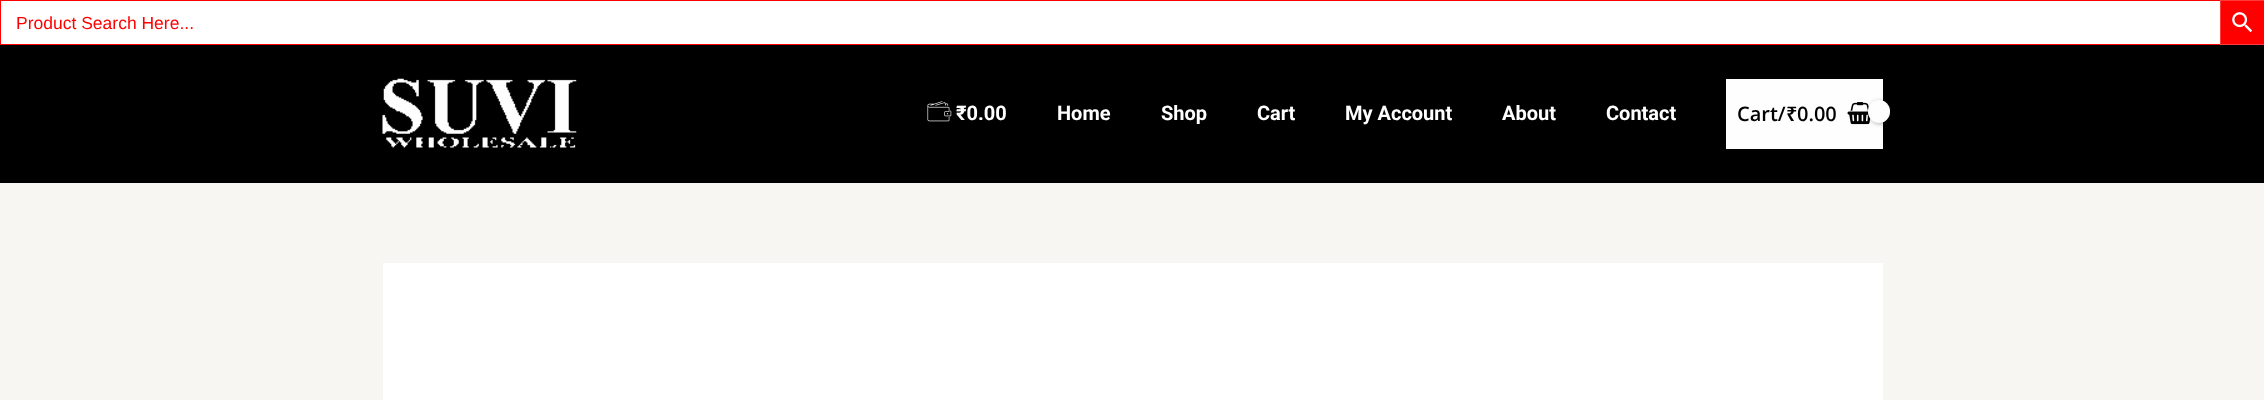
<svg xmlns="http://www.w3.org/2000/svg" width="2264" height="400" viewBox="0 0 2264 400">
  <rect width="100%" height="100%" fill="#f8f6f3"/>
  <path d="M1 1h2219v43H1z" fill="#fff"/>
  <path d="M0 0h2220v1H0z" fill="#f00"/>
  <path d="M0 44h2220v1H0z" fill="#f00"/>
  <path d="M0 0h1v45H0z" fill="#f00"/>
  <path d="M2220.5 0.5h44v44H2220.5z" fill="#f00" stroke="#ff3a3a"/>
  <image x="2232" y="12" width="21" height="21" href="img/1.png"/>
  <path d="M0 45h2264v138H0z" fill="#000"/>
  <image x="382" y="78" width="195" height="70" href="img/2.png"/>
  <image x="927" y="101" width="25" height="21" href="img/3.png"/>
  <path d="M1726 79h157v70H1726z" fill="#fefefe"/>
  <image x="1847" y="102" width="24" height="23" href="img/4.png"/>
  <rect x="1869" y="101" width="22" height="23" rx="11" fill="#0000004d" filter="blur(2px)"/>
  <rect x="1868" y="100" width="22" height="23" rx="11" fill="#fefefe"/>
  <path d="M383 263h1500v137H383z" fill="#fff"/>
  <text x="16" y="29" font-family="Liberation Sans" font-size="17.5" fill="#f00">Product Search Here...</text>
  <g font-family="Roboto" font-size="20" font-weight="bold" fill="#fff">
    <text x="956" y="120">₹0.00</text>
    <text x="1057" y="120">Home</text>
    <text x="1161" y="120">Shop</text>
    <text x="1257" y="120">Cart</text>
    <text x="1345" y="120">My Account</text>
    <text x="1502" y="120">About</text>
    <text x="1606" y="120">Contact</text>
  </g>
  <text x="1737" y="121" font-family="Open Sans" font-size="20" font-weight="600" fill="#000">Cart/</text>
  <text x="1786" y="121" font-family="Noto Sans" font-size="20" font-weight="600" fill="#000">₹</text>
  <text x="1797" y="121" font-family="Open Sans" font-size="20" font-weight="600" fill="#000">0.00</text>
</svg>
